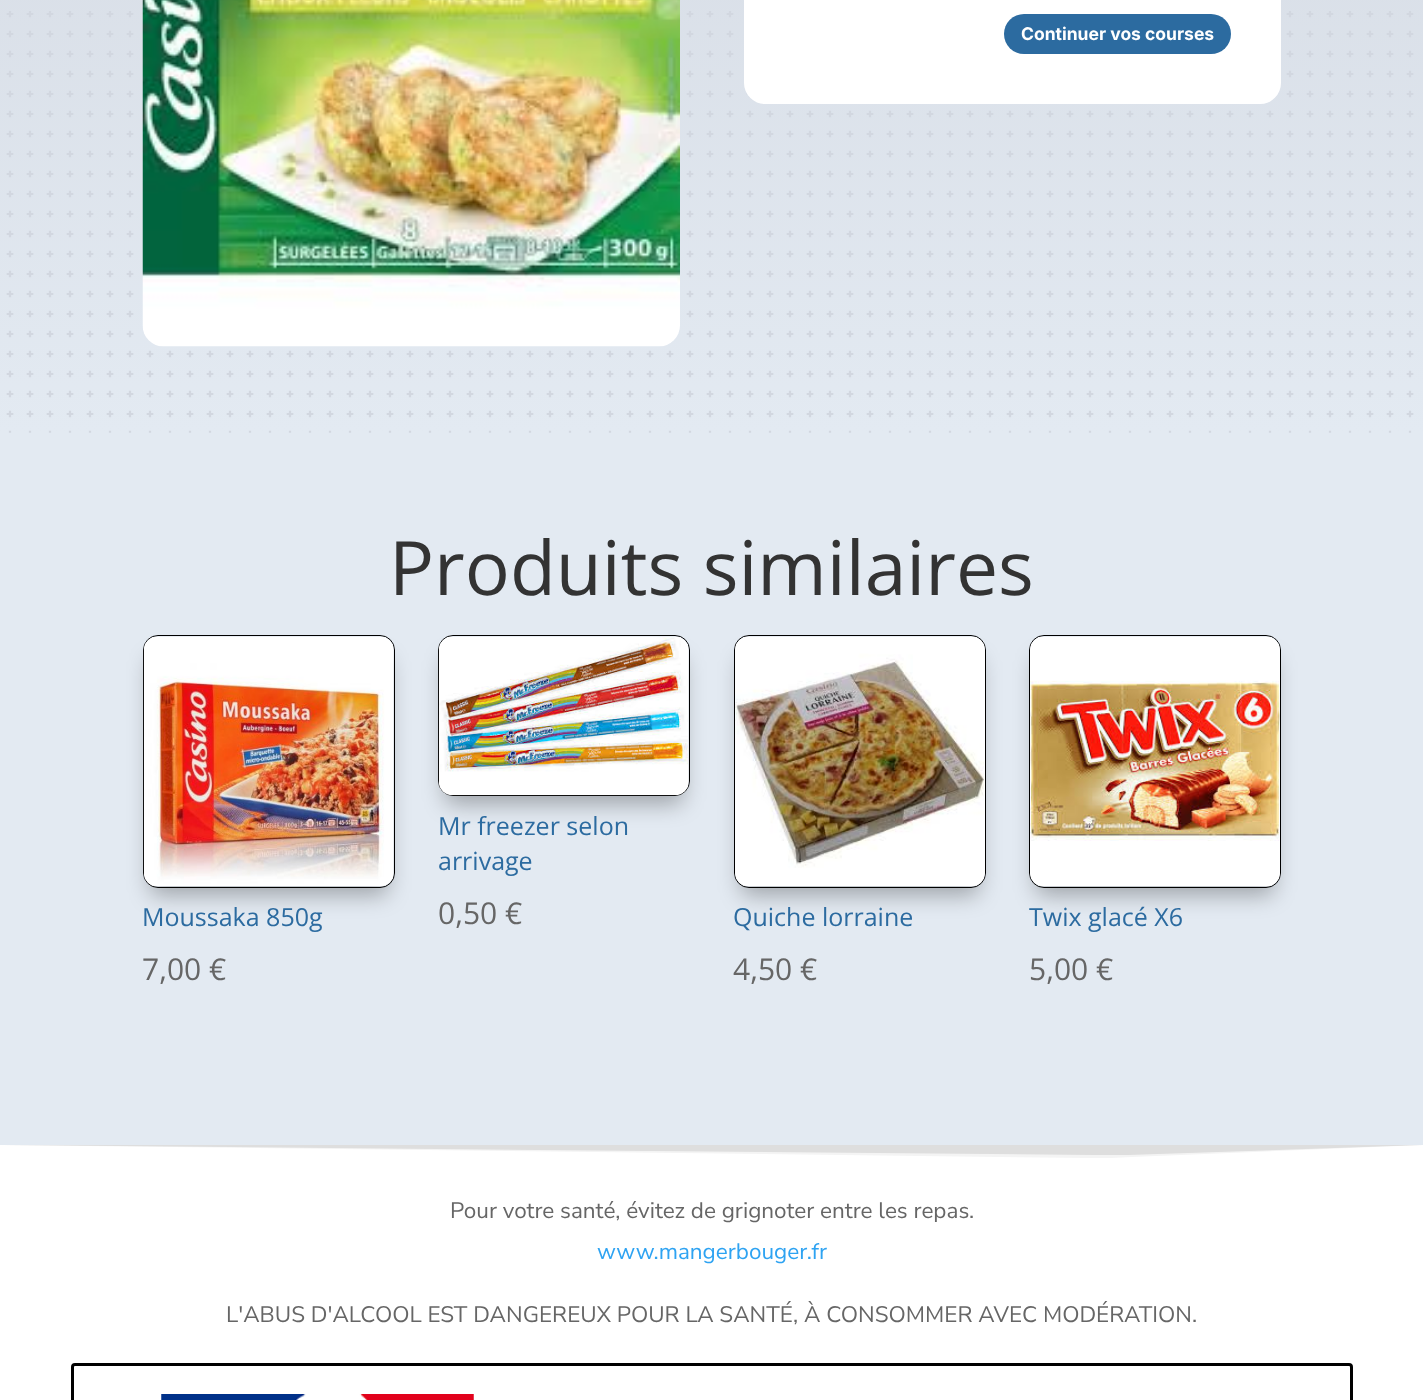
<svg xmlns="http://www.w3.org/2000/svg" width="1423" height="1400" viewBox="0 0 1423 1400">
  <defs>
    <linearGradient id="g1" gradientUnits="userSpaceOnUse" x1="712" y1="-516" x2="712" y2="433"><stop offset="0.1" stop-color="#d2d7e0"/><stop offset="1" stop-color="#e3eaf2"/></linearGradient>
  </defs>
  <rect width="100%" height="100%" fill="#fff"/>
  <path d="M0 0h1423v433H0z" fill="url(#g1)"/>
  <image x="6" y="11" width="1408" height="422" href="img/1.png"/>
  <image x="142" y="0" width="538" height="347" href="img/2.png"/>
  <rect x="744" y="-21" width="537" height="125" rx="21" fill="#fff"/>
  <rect x="1004" y="14" width="227" height="40" rx="20" fill="#2c6ba0"/>
  <path d="M0 433h1423v712H0z" fill="#e3eaf2"/>
  <rect x="445" y="658" width="238" height="146" rx="8" fill="#0000004d" filter="blur(11px)"/>
  <rect x="438.5" y="635.5" width="251" height="160" rx="14.5" fill="none" stroke="#000"/>
  <image x="438" y="636" width="251" height="160" href="img/3.png"/>
  <rect x="150" y="658" width="238" height="237" rx="8" fill="#0000004d" filter="blur(11px)"/>
  <rect x="143.5" y="635.5" width="251" height="252" rx="14.5" fill="none" stroke="#000"/>
  <image x="143" y="636" width="251" height="251" href="img/4.png"/>
  <rect x="741" y="658" width="238" height="237" rx="8" fill="#0000004d" filter="blur(11px)"/>
  <rect x="734.5" y="635.5" width="251" height="252" rx="14.5" fill="none" stroke="#000"/>
  <image x="735" y="636" width="250" height="251" href="img/5.png"/>
  <rect x="1036" y="658" width="238" height="237" rx="8" fill="#0000004d" filter="blur(11px)"/>
  <rect x="1029.5" y="635.5" width="251" height="252" rx="14.5" fill="none" stroke="#000"/>
  <image x="1030" y="636" width="250" height="251" href="img/6.png"/>
  <path d="M1089 1158L0 1145H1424L1132 1157C1119 1158 1104 1158 1089 1158Z" fill="#f4f4f4"/>
  <path d="M1094 1155L0 1145H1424L1128 1155Z" fill="#00000017"/>
  <rect x="72.5" y="1364.5" width="1279" height="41" rx="2.5" fill="none" stroke="#000" stroke-width="3"/>
  <image x="161" y="1394" width="313" height="6" href="img/7.png"/>
  <text x="1021" y="40" font-family="Inter" font-size="17.5" font-weight="bold" fill="#fff">Continuer vos courses</text>
  <text x="389" y="595" font-family="Open Sans" font-size="75" fill="#333">Produits similaires</text>
  <g font-family="Open Sans" font-size="25" fill="#2c6ba0">
    <text x="438" y="835">Mr freezer selon</text>
    <text x="438" y="870">arrivage</text>
  </g>
  <text x="438" y="924" font-family="Open Sans" font-size="30" fill="#666">0,50 €</text>
  <text x="142" y="926" font-family="Open Sans" font-size="25" fill="#2c6ba0">Moussaka 850g</text>
  <text x="142" y="980" font-family="Open Sans" font-size="30" fill="#666">7,00 €</text>
  <text x="733" y="926" font-family="Open Sans" font-size="25" fill="#2c6ba0">Quiche lorraine</text>
  <text x="733" y="980" font-family="Open Sans" font-size="30" fill="#666">4,50 €</text>
  <text x="1029" y="926" font-family="Open Sans" font-size="25" fill="#2c6ba0">Twix glacé X6</text>
  <text x="1029" y="980" font-family="Open Sans" font-size="30" fill="#666">5,00 €</text>
  <text x="450" y="1218" font-family="Nunito Sans" font-size="22.5" fill="#666">Pour votre santé, évitez de grignoter entre les repas.</text>
  <text x="597" y="1259" font-family="Nunito Sans" font-size="22.5" fill="#2ea3f2">www.mangerbouger.fr</text>
  <text x="226" y="1322" font-family="Nunito Sans" font-size="22.5" fill="#666">L'ABUS D'ALCOOL EST DANGEREUX POUR LA SANTÉ, À CONSOMMER AVEC MODÉRATION.</text>
</svg>
